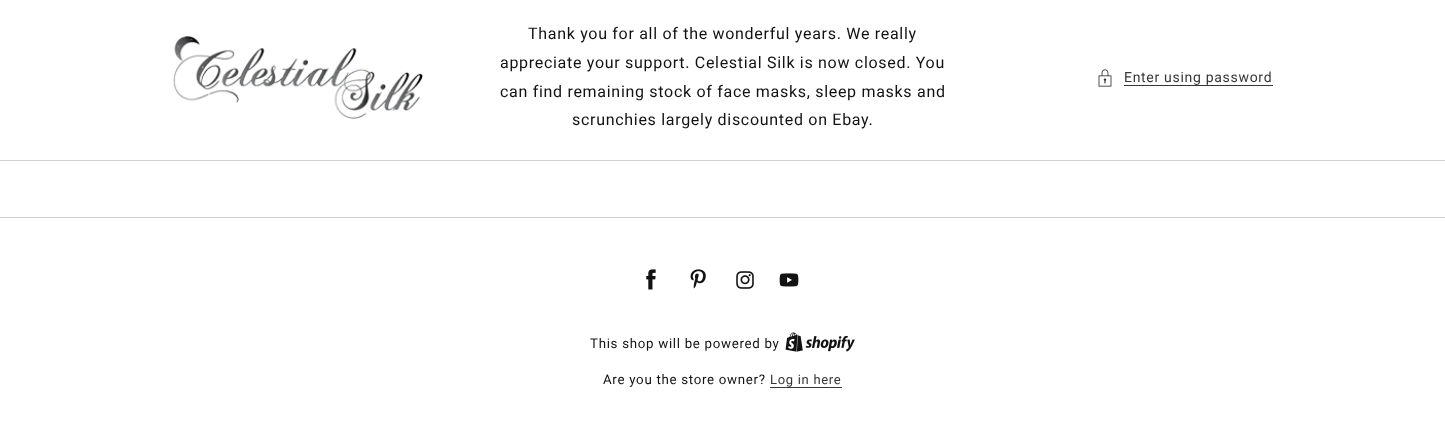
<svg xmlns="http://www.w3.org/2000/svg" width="1445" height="432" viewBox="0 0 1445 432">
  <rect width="100%" height="100%" fill="#fff"/>
  <image x="173" y="36" width="250" height="83" href="img/1.png"/>
  <image x="1098" y="69" width="14" height="18" href="img/2.png"/>
  <path d="M1124 85h149v1H1124z" fill="#363636"/>
  <path d="M0 160h1445v1H0z" fill="#d0d0d0"/>
  <path d="M0 217h1445v1H0z" fill="#d0d0d0"/>
  <image x="646" y="269" width="10" height="21" href="img/3.png"/>
  <image x="690" y="269" width="16" height="20" href="img/4.png"/>
  <image x="736" y="271" width="18" height="18" href="img/5.png"/>
  <image x="779" y="273" width="20" height="14" href="img/6.png"/>
  <image x="785" y="332" width="70" height="20" href="img/7.png"/>
  <path d="M770 387h72v1H770z" fill="#363636"/>
  <g font-family="Roboto" font-size="16" letter-spacing="0.7" fill="#121212">
    <text x="528" y="39">Thank you for all of the wonderful years. We really</text>
    <text x="500" y="68">appreciate your support. Celestial Silk is now closed. You</text>
    <text x="500" y="97">can find remaining stock of face masks, sleep masks and</text>
    <text x="572" y="125">scrunchies largely discounted on Ebay.</text>
  </g>
  <text x="1124" y="82" font-family="Roboto" font-size="14" letter-spacing="0.7" fill="#363636">Enter using password</text>
  <g font-family="Roboto" font-size="13.3" letter-spacing="0.7" fill="#121212">
    <text x="590" y="348">This shop will be powered by</text>
    <text x="603" y="384">Are you the store owner?</text>
  </g>
  <text x="770" y="384" font-family="Roboto" font-size="13" letter-spacing="0.7" fill="#363636">Log in here</text>
</svg>
